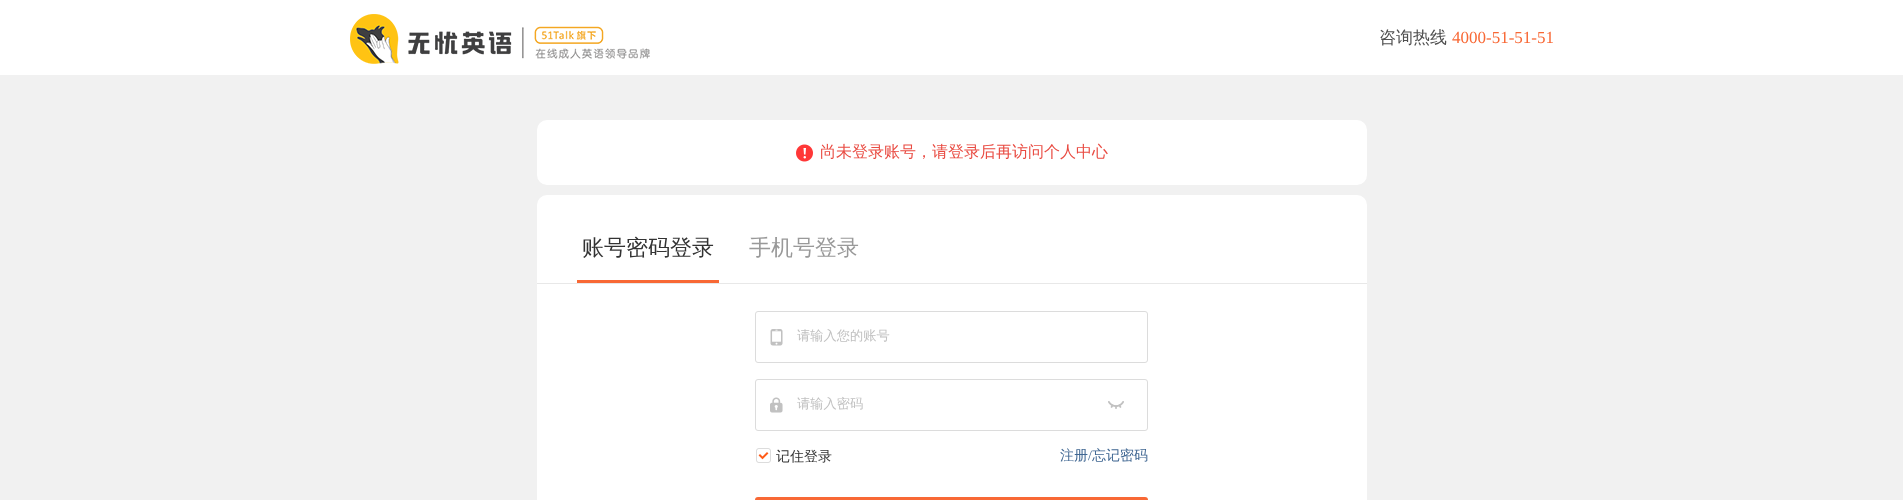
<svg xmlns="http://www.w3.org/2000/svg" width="1903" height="500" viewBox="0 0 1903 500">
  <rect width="100%" height="100%" fill="#fff"/>
  <image x="350" y="14" width="300" height="50" href="img/1.png"/>
  <path d="M0 75h1903v425H0z" fill="#f1f1f1"/>
  <rect x="537" y="120" width="830" height="65" rx="10" fill="#fff"/>
  <image x="796" y="144" width="17" height="18" href="img/2.png"/>
  <rect x="537" y="195" width="830" height="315" rx="10" fill="#fff"/>
  <path d="M537 283h830v1H537z" fill="#e8e8e8"/>
  <path d="M577 280h142v3H577z" fill="#f86835"/>
  <rect x="755.5" y="311.5" width="392" height="51" rx="2.5" fill="none" stroke="#dcdcdc"/>
  <image x="770" y="329" width="13" height="17" href="img/3.png"/>
  <rect x="755.5" y="379.5" width="392" height="51" rx="2.5" fill="none" stroke="#dcdcdc"/>
  <image x="770" y="397" width="13" height="16" href="img/4.png"/>
  <image x="1108" y="401" width="16" height="8" href="img/5.png"/>
  <image x="756" y="448" width="15" height="15" href="img/6.png"/>
  <rect x="755" y="497" width="393" height="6" rx="3" fill="#f86835"/>
  <text x="1379" y="43" font-family="WenQuanYi Zen Hei" font-size="17" font-weight="500" fill="#4f4f4f">咨询热线</text>
  <text x="1452" y="43" font-family="Liberation Serif" font-size="17" fill="#f86835">4000-51-51-51</text>
  <text x="820" y="157" font-family="WenQuanYi Zen Hei" font-size="16" font-weight="500" fill="#e94b42">尚未登录账号，请登录后再访问个人中心</text>
  <text x="582" y="255" font-family="WenQuanYi Zen Hei" font-size="22" font-weight="500" fill="#333">账号密码登录</text>
  <text x="749" y="255" font-family="WenQuanYi Zen Hei" font-size="22" font-weight="500" fill="#999">手机号登录</text>
  <g font-family="WenQuanYi Zen Hei" font-size="13.25" font-weight="500" fill="#c1c1c1">
    <text x="797" y="340">请输入您的账号</text>
    <text x="797" y="408">请输入密码</text>
  </g>
  <text x="776" y="461" font-family="WenQuanYi Zen Hei" font-size="14" font-weight="500" fill="#333">记住登录</text>
  <text x="1060" y="460" font-family="WenQuanYi Zen Hei" font-size="14" font-weight="500" fill="#406792">注册</text>
  <text x="1088" y="460" font-family="Liberation Serif" font-size="14" fill="#406792">/</text>
  <text x="1092" y="460" font-family="WenQuanYi Zen Hei" font-size="14" font-weight="500" fill="#406792">忘记密码</text>
</svg>
